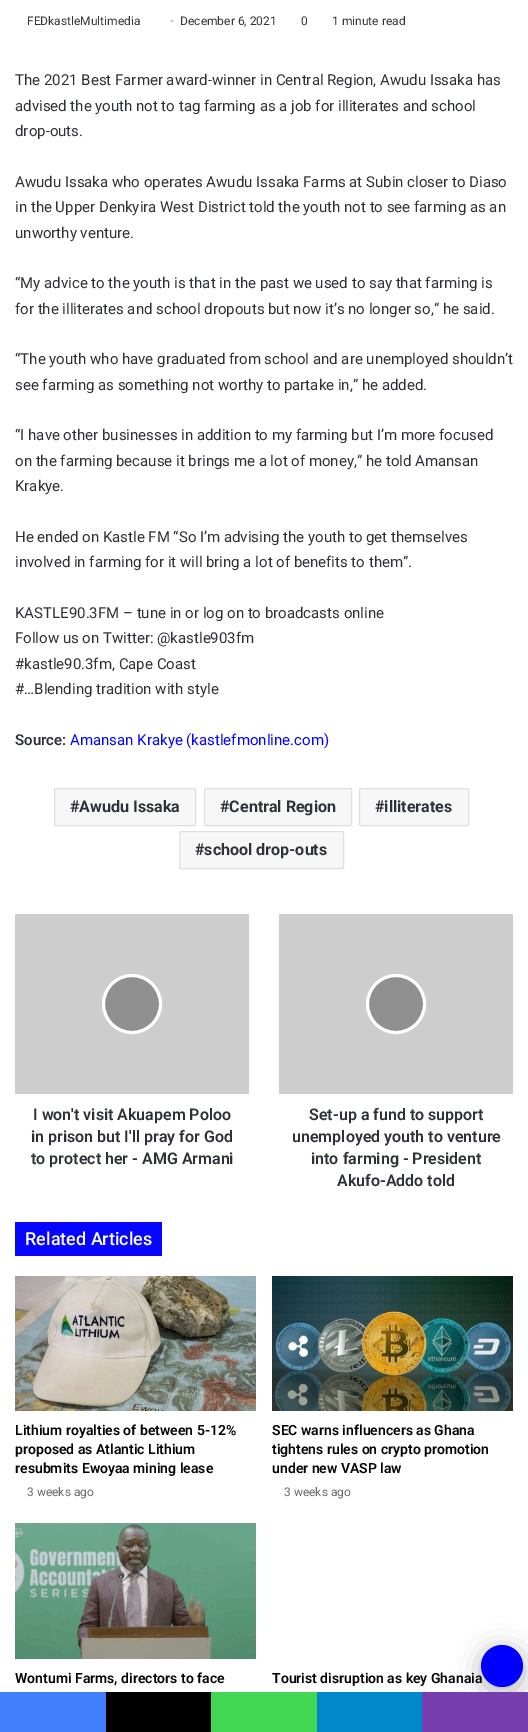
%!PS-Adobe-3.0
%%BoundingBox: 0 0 528 1732
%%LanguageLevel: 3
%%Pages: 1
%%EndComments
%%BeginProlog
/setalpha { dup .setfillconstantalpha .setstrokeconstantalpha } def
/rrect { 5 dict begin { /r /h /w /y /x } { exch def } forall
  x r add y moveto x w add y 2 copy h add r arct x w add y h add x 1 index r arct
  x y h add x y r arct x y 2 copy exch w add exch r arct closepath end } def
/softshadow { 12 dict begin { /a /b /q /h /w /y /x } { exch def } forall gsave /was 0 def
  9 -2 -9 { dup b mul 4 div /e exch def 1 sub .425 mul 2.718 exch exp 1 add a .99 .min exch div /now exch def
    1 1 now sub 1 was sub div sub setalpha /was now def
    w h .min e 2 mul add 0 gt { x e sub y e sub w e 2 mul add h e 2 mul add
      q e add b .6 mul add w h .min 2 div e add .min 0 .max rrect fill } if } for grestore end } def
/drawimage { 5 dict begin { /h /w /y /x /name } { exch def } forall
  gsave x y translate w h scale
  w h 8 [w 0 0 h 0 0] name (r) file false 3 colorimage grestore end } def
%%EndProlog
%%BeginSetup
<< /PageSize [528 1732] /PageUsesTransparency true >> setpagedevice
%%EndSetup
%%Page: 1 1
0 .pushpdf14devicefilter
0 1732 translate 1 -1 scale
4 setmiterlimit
1 setgray
0 0 528 1732 rectfill
0.969 setgray
54.5 788.5 141 37 1.5 rrect gsave fill grestore
0.875 setgray
stroke
0.969 setgray
204.5 788.5 147 37 1.5 rrect gsave fill grestore
0.875 setgray
stroke
0.969 setgray
359.5 788.5 109 37 1.5 rrect gsave fill grestore
0.875 setgray
stroke
0.969 setgray
179.5 831.5 164 37 1.5 rrect gsave fill grestore
0.875 setgray
stroke
0.804 setgray
newpath 17 914 moveto 249 914 lineto 249 1094 lineto 15 1094 lineto 15 916 lineto 15 915 16 914 17 914 curveto closepath fill
0.565 setgray
newpath 132 1004 28.5 0 360 arc closepath gsave fill grestore
1 setgray
3 setlinewidth
stroke
0.804 setgray
newpath 279 914 moveto 511 914 lineto 512 914 513 915 513 916 curveto 513 1094 lineto 279 1094 lineto closepath fill
0.565 setgray
newpath 396 1004 28.5 0 360 arc closepath gsave fill grestore
1 setgray
stroke
0.024 0.02 0.996 setrgbcolor
15 1222 147 34 rectfill
(images/1.raw) 15 1276 241 135 drawimage
(images/2.raw) 272 1276 241 135 drawimage
(images/3.raw) 15 1523 241 137 drawimage
0 setgray
481 1650 42 42 21 12.5 0.3 softshadow
0.251 0.502 1 setrgbcolor
0 1692 106 40 rectfill
0 setgray
106 1692 105 40 rectfill
0.263 0.847 0.329 setrgbcolor
211 1692 106 40 rectfill
0 0.533 0.8 setrgbcolor
317 1692 105 40 rectfill
0.467 0.243 0.678 setrgbcolor
422 1692 106 40 rectfill
/Roboto-Regular [12 0 0 -12 0 0] selectfont
0.208 setgray
27 25 moveto (FEDkastleMultimedia) show
/LiberationSerif-Regular [12 0 0 -12 0 0] selectfont
0.804 setgray
170 25 moveto (•) show
/Roboto-Regular [12 0 0 -12 0 0] selectfont
0.208 setgray
180 25 moveto (December 6, 2021) show
301 25 moveto (0) show
332 25 moveto (1 minute read) show
/Roboto-Regular [15 0 0 -15 0 0] selectfont
0.18 0.192 0.212 setrgbcolor
15 85 moveto (The 2021 Best Farmer award-winner in Central Region, Awudu Issaka has) show
15 111 moveto (advised the youth not to tag farming as a job for illiterates and school) show
15 136 moveto (drop-outs.) show
15 187 moveto (Awudu Issaka who operates Awudu Issaka Farms at Subin closer to Diaso) show
15 212 moveto (in the Upper Denkyira West District told the youth not to see farming as an) show
15 238 moveto (unworthy venture.) show
15 288 moveto (“My advice to the youth is that in the past we used to say that farming is) show
15 314 moveto (for the illiterates and school dropouts but now it’s no longer so,” he said.) show
15 364 moveto (“The youth who have graduated from school and are unemployed shouldn’t) show
15 390 moveto (see farming as something not worthy to partake in,” he added.) show
15 440 moveto (“I have other businesses in addition to my farming but I’m more focused) show
15 466 moveto (on the farming because it brings me a lot of money,” he told Amansan) show
15 491 moveto (Krakye.) show
15 542 moveto (He ended on Kastle FM “So I’m advising the youth to get themselves) show
15 567 moveto (involved in farming for it will bring a lot of benefits to them”.) show
15 618 moveto (KASTLE90.3FM – tune in or log on to broadcasts online) show
15 643 moveto (Follow us on Twitter: @kastle903fm) show
15 669 moveto (#kastle90.3fm, Cape Coast) show
15 694 moveto (#…Blending tradition with style) show
/Roboto-SemiBold [15 0 0 -15 0 0] selectfont
15 745 moveto (Source:) show
/Roboto-Regular [15 0 0 -15 0 0] selectfont
0.012 0.012 1 setrgbcolor
70 745 moveto (Amansan Krakye \(kastlefmonline.com\)) show
/Roboto-Bold [16 0 0 -16 0 0] selectfont
0.18 0.192 0.212 setrgbcolor
70 812 moveto (#Awudu Issaka) show
220 812 moveto (#Central Region) show
375 812 moveto (#illiterates) show
195 855 moveto (#school drop-outs) show
/Roboto-SemiBold [16 0 0 -16 0 0] selectfont
33 1120 moveto (I won't visit Akuapem Poloo) show
31 1142 moveto (in prison but I'll pray for God) show
31 1164 moveto (to protect her - AMG Armani) show
309 1120 moveto (Set-up a fund to support) show
292 1142 moveto (unemployed youth to venture) show
311 1164 moveto (into farming - President) show
337 1186 moveto (Akufo-Addo told) show
/Roboto-Medium [18 0 0 -18 0 0] selectfont
1 setgray
25 1245 moveto (Related Articles) show
/Roboto-SemiBold [14 0 0 -14 0 0] selectfont
0.012 setgray
15 1435 moveto (Lithium royalties of between 5-12%) show
15 1454 moveto (proposed as Atlantic Lithium) show
15 1473 moveto (resubmits Ewoyaa mining lease) show
/Roboto-Regular [12 0 0 -12 0 0] selectfont
0.408 setgray
27 1496 moveto (3 weeks ago) show
/Roboto-SemiBold [14 0 0 -14 0 0] selectfont
0.012 setgray
272 1435 moveto (SEC warns influencers as Ghana) show
272 1454 moveto (tightens rules on crypto promotion) show
272 1473 moveto (under new VASP law) show
/Roboto-Regular [12 0 0 -12 0 0] selectfont
0.408 setgray
284 1496 moveto (3 weeks ago) show
/Roboto-SemiBold [14 0 0 -14 0 0] selectfont
0.012 setgray
15 1683 moveto (Wontumi Farms, directors to face) show
272 1683 moveto (Tourist disruption as key Ghanaia) show
0.004 0 0.996 setrgbcolor
newpath 502 1666 21 0 360 arc closepath fill
.poppdf14devicefilter showpage
%%EOF
